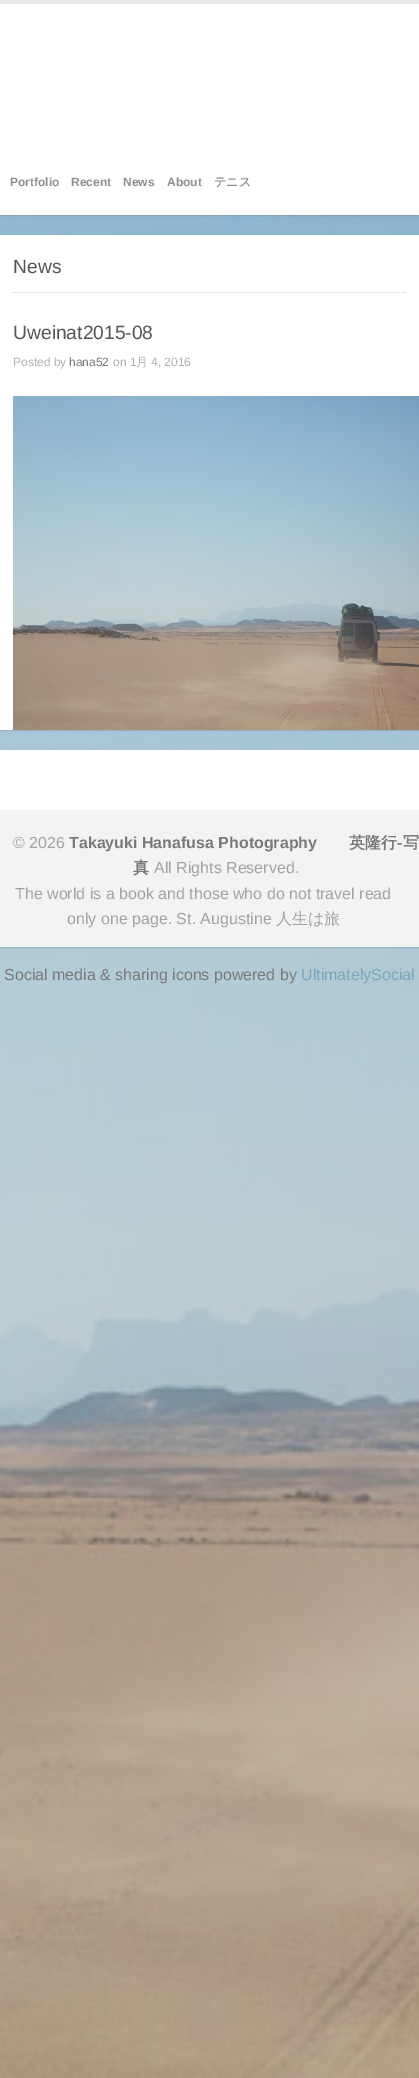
%!PS-Adobe-3.0
%%BoundingBox: 0 0 419 2078
%%LanguageLevel: 3
%%Pages: 1
%%EndComments
%%BeginProlog
/setalpha { dup .setfillconstantalpha .setstrokeconstantalpha } def
/rrect { 5 dict begin { /r /h /w /y /x } { exch def } forall
  x r add y moveto x w add y 2 copy h add r arct x w add y h add x 1 index r arct
  x y h add x y r arct x y 2 copy exch w add exch r arct closepath end } def
/softshadow { 12 dict begin { /a /b /q /h /w /y /x } { exch def } forall gsave /was 0 def
  9 -2 -9 { dup b mul 4 div /e exch def 1 sub .425 mul 2.718 exch exp 1 add a .99 .min exch div /now exch def
    1 1 now sub 1 was sub div sub setalpha /was now def
    w h .min e 2 mul add 0 gt { x e sub y e sub w e 2 mul add h e 2 mul add
      q e add b .6 mul add w h .min 2 div e add .min 0 .max rrect fill } if } for grestore end } def
/drawimage { 5 dict begin { /h /w /y /x /name } { exch def } forall
  gsave x y translate w h scale
  w h 8 [w 0 0 h 0 0] name (r) file false 3 colorimage grestore end } def
%%EndProlog
%%BeginSetup
<< /PageSize [419 2078] /PageUsesTransparency true >> setpagedevice
%%EndSetup
%%Page: 1 1
0 .pushpdf14devicefilter
0 2078 translate 1 -1 scale
4 setmiterlimit
1 setgray
0 0 419 2078 rectfill
(images/3.raw) 0 215 419 1863 drawimage
0 setgray
0 1 419 215 0 0.5 0.1 softshadow
1 setgray
0 4 419 211 rectfill
0.918 setgray
0 0 419 4 rectfill
0 setgray
0 236 419 495 0 0.5 0.1 softshadow
1 setgray
0 235 419 495 rectfill
(images/1.raw) 13 292 393 1 drawimage
(images/2.raw) 13 396 406 334 drawimage
0 setgray
0 751 419 197 0 0.5 0.1 softshadow
1 setgray
0 750 419 60 rectfill
0.953 setgray
0 810 419 137 rectfill
/LiberationSans-Bold [12 0 0 -12 0 0] selectfont
0.561 setgray
10 186 moveto (Portfolio) show
71 186 moveto (Recent) show
123 186 moveto (News) show
167 186 moveto (About) show
/WenQuanYiZenHei-Bold [12 0 0 -12 0 0] selectfont
214 186 moveto (テニス) show
/LiberationSans-Regular [19.25 0 0 -19.25 0 0] selectfont
0.333 setgray
13 273 moveto (News) show
13 339 moveto (Uweinat2015-08) show
/LiberationSans-Regular [12 0 0 -12 0 0] selectfont
0.69 0.69 0.678 setrgbcolor
13 366 moveto (Posted by) show
0.475 setgray
69 366 moveto (hana52) show
0.69 0.69 0.678 setrgbcolor
113 366 moveto (on 1) show
/WenQuanYiZenHei-Medium [12 0 0 -12 0 0] selectfont
136 366 moveto (月) show
/LiberationSans-Regular [12 0 0 -12 0 0] selectfont
151 366 moveto (4, 2016) show
/LiberationSans-Regular [16 0 0 -16 0 0] selectfont
0.635 setgray
13 848 moveto (© 2026) show
/LiberationSans-Bold [16 0 0 -16 0 0] selectfont
0.475 setgray
69 848 moveto (Takayuki Hanafusa Photography) show
/WenQuanYiZenHei-Bold [16 0 0 -16 0 0] selectfont
349 848 moveto (英隆行) show
/LiberationSans-Bold [16 0 0 -16 0 0] selectfont
397 848 moveto (-) show
/WenQuanYiZenHei-Bold [16 0 0 -16 0 0] selectfont
403 848 moveto (写) show
133 873 moveto (真) show
/LiberationSans-Regular [16 0 0 -16 0 0] selectfont
0.635 setgray
154 873 moveto (All Rights Reserved.) show
15 899 moveto (The world is a book and those who do not travel read) show
67 924 moveto (only one page. St. Augustine) show
/WenQuanYiZenHei-Medium [16 0 0 -16 0 0] selectfont
276 924 moveto (人生は旅) show
/LiberationSans-Regular [16 0 0 -16 0 0] selectfont
0.475 setgray
4 980 moveto (Social media & sharing icons powered by) show
0.467 0.655 0.725 setrgbcolor
301 980 moveto (UltimatelySocial) show
.poppdf14devicefilter showpage
%%EOF
